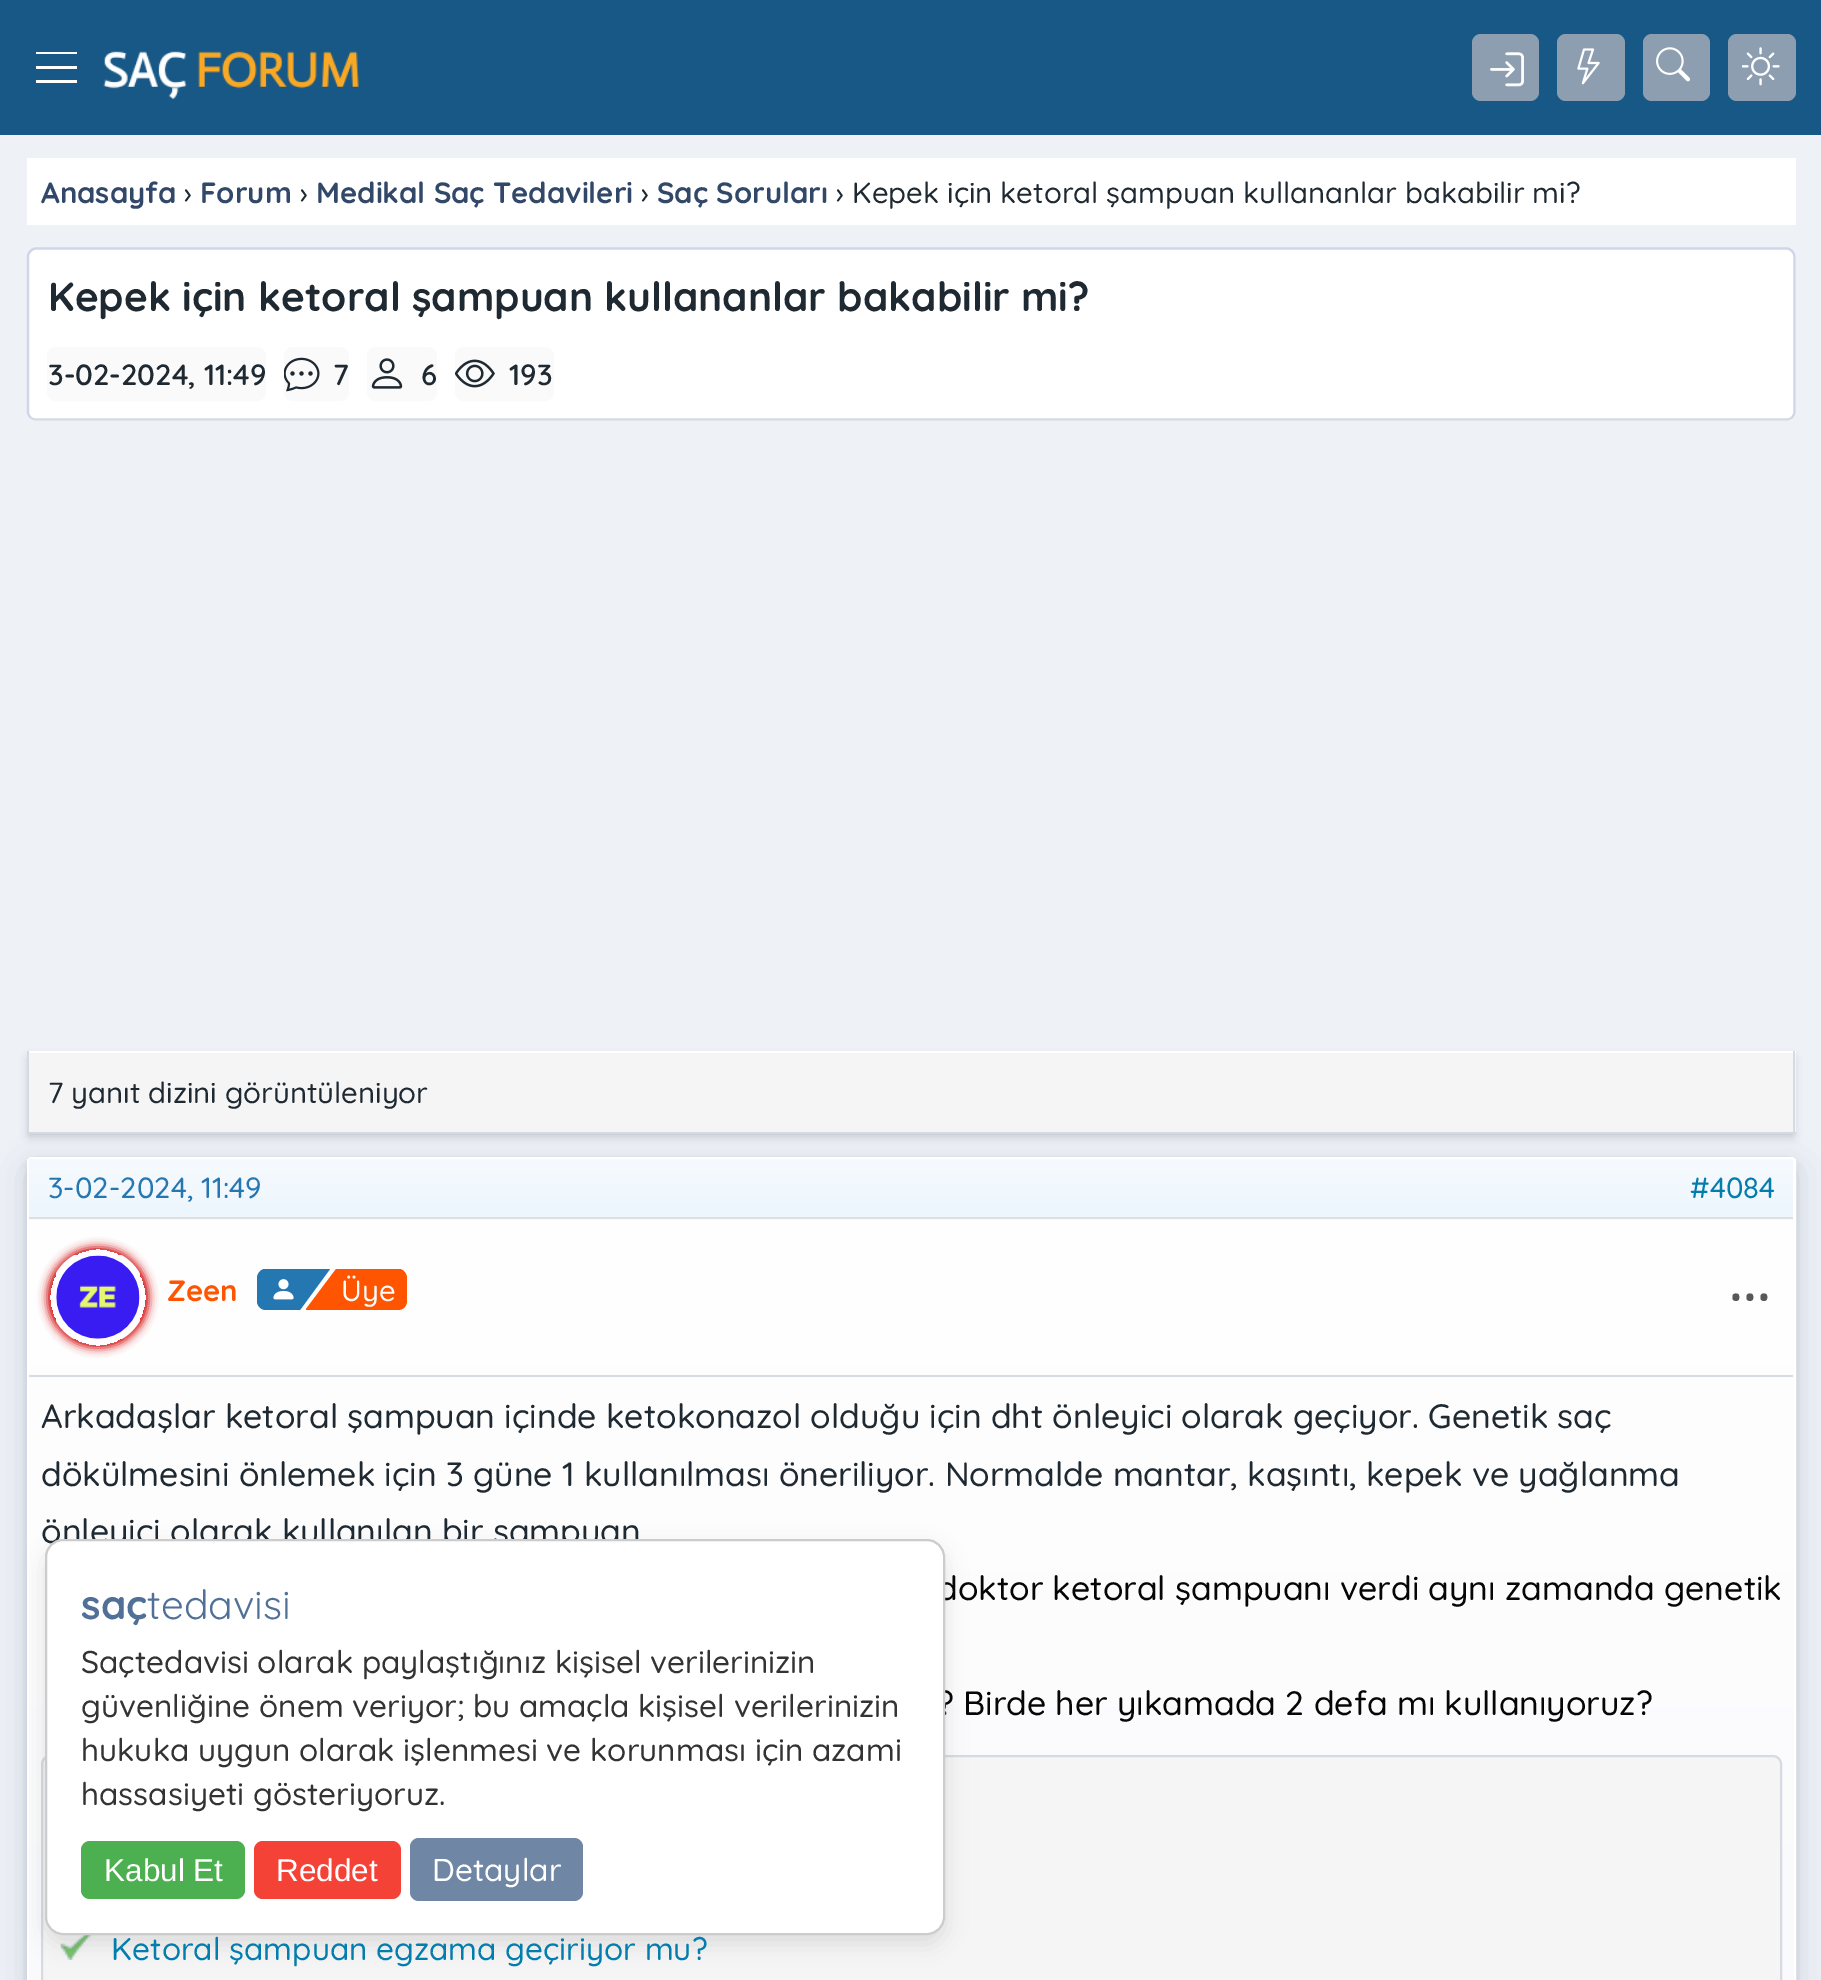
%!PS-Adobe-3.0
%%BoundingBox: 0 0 1821 1980
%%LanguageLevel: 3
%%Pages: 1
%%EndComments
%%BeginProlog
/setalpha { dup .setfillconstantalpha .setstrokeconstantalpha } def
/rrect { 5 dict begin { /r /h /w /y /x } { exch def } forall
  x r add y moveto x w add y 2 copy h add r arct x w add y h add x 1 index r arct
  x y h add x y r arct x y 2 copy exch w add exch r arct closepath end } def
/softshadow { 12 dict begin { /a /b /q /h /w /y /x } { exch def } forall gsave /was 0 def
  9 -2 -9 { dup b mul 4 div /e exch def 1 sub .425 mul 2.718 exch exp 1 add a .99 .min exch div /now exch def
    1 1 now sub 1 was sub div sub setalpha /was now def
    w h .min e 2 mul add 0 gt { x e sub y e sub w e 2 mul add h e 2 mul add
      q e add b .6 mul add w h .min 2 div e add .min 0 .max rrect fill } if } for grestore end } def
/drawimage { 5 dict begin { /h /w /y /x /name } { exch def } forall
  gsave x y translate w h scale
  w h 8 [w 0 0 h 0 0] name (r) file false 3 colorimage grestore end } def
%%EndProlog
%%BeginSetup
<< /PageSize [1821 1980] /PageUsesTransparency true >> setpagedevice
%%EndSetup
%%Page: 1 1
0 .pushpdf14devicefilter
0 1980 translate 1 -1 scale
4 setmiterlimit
0.933 0.945 0.965 setrgbcolor
0 0 1821 1980 rectfill
0.094 0.345 0.525 setrgbcolor
0 0 1821 135 rectfill
1 setgray
36 52 41 2 rectfill
36 66 41 3 rectfill
36 80 41 3 rectfill
(images/1.raw) 103 51 256 48 drawimage
0.557 0.62 0.694 setrgbcolor
1472 34 67 67 9 rrect fill
(images/2.raw) 1490 52 34 35 drawimage
1557 34 68 67 9 rrect fill
(images/3.raw) 1577 48 23 37 drawimage
1643 34 67 67 9 rrect fill
(images/4.raw) 1656 47 35 35 drawimage
1728 34 68 67 9 rrect fill
(images/5.raw) 1742 47 38 39 drawimage
1 setgray
27 158 1769 67 rectfill
27 248 1769 173 9 rrect fill
0.839 0.855 0.89 setrgbcolor
2.2 setlinewidth
newpath 1792 417.5 moveto 1790.5 419 1788.5 419.5 1786.5 419.5 curveto 36 419.5 lineto 34 419.5 32 419 30.5 417.5 curveto stroke
0.804 0.839 0.922 setrgbcolor
newpath 30.5 417.5 moveto 29 416 28 414 28 412 curveto 28 256.5 lineto 28 254.5 29 252.5 30.5 251 curveto 32 249.5 34 248.5 36 248.5 curveto 1786.5 248.5 lineto 1788.5 248.5 1790.5 249.5 1792 251 curveto 1793.5 252.5 1794.5 254.5 1794.5 256.5 curveto 1794.5 412 lineto 1794.5 414 1793.5 416 1792 417.5 curveto stroke
0.98 setgray
47 347 219 54 9 rrect fill
284 347 65 54 9 rrect fill
(images/6.raw) 284 357 36 35 drawimage
367 347 70 54 9 rrect fill
(images/7.raw) 371 358 32 31 drawimage
455 347 99 54 9 rrect fill
(images/8.raw) 455 359 40 29 drawimage
0.741 0.757 0.78 setrgbcolor
29 1058 1764 78 0 4.5 1 softshadow
0.961 setgray
29 1053 1767 79 rectfill
1 setgray
27 1051 1769 2 rectfill
0.839 0.855 0.89 setrgbcolor
1793 1051 2 83 rectfill
27 1132 1769 2 rectfill
27 1051 2 83 rectfill
0.365 0.392 0.58 setrgbcolor
27 1161 1769 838 5 4.5 0.2 softshadow
0.145 0.173 0.38 setrgbcolor
27 1168 1769 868 5 17 0.15 softshadow
gsave
27 1157 1769 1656 5 rrect clip newpath
gsave newpath 27 1159 moveto 1796 1159 lineto 1796 1980 lineto 27 1980 lineto closepath clip newpath
<< /ShadingType 2 /ColorSpace /DeviceRGB /Coords [911 1159 911 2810] /Extend [true true] /Function << /FunctionType 2 /Domain [0 1] /C0 [1 1 1] /C1 [0.961 0.961 0.98] /N 1 >> >> shfill grestore
grestore
1 setgray
2 setlinewidth
28 1158 1767 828 4 rrect stroke
gsave newpath 29 1159 moveto 1793 1159 lineto 1793 1217 lineto 29 1217 lineto closepath clip newpath
<< /ShadingType 2 /ColorSpace /DeviceRGB /Coords [911 1217 911 1159] /Extend [true true] /Function << /FunctionType 2 /Domain [0 1] /C0 [0.929 0.965 0.992] /C1 [0.965 0.98 0.996] /N 1 >> >> shfill grestore
gsave newpath 29 1219 moveto 1793 1219 lineto 1793 1220 lineto 29 1220 lineto closepath clip newpath
<< /ShadingType 2 /ColorSpace /DeviceRGB /Coords [911 1276 911 1217] /Extend [true true] /Function << /FunctionType 2 /Domain [0 1] /C0 [0.929 0.965 0.992] /C1 [0.965 0.98 0.996] /N 1 >> >> shfill grestore
0.875 setgray
29 1217 1764 2 rectfill
0.839 0.855 0.89 setrgbcolor
29 1375 1764 2 rectfill
gsave
newpath 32 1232 moveto 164 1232 lineto 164 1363 lineto 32 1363 lineto closepath 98 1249 moveto 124.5 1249 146 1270.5 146 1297 curveto 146 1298 lineto 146 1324.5 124.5 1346 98 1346 curveto 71.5 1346 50 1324.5 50 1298 curveto 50 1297 lineto 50 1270.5 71.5 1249 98 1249 curveto closepath eoclip newpath
0.82 0 0 setrgbcolor
47 1247 102 101 50.5 4.5 1 softshadow
grestore
(images/9.raw) 56 1255 84 84 drawimage
0.145 0.467 0.694 setrgbcolor
newpath 300 1310 moveto 330 1269 lineto 264 1269 lineto 260 1270 257 1274 257 1278 curveto 257 1301 lineto 257 1306 261 1310 266 1310 curveto closepath fill
(images/10.raw) 273 1279 21 21 drawimage
1 0.329 0 setrgbcolor
newpath 336 1269 moveto 306 1309 lineto 306 1310 lineto 398 1310 lineto 403 1310 406 1307 407 1302 curveto 407 1277 lineto 406 1273 404 1270 400 1269 curveto closepath fill
0.961 setgray
42 1756 1739 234 8 rrect gsave fill grestore
0.839 0.855 0.89 setrgbcolor
stroke
(images/11.raw) 60 1935 33 25 drawimage
0 setgray
45 1548 900 396 18 11 0.1 softshadow
/Quicksand-Bold [29.25 0 0 -29.25 0 0] selectfont
0.196 0.282 0.412 setrgbcolor
41 203 moveto (Anasayfa) show
/Quicksand-Medium [29.25 0 0 -29.25 0 0] selectfont
0.122 0.161 0.196 setrgbcolor
184 203 moveto (›) show
/Quicksand-Bold [29.25 0 0 -29.25 0 0] selectfont
0.196 0.282 0.412 setrgbcolor
200 203 moveto (Forum) show
/Quicksand-Medium [29.25 0 0 -29.25 0 0] selectfont
0.122 0.161 0.196 setrgbcolor
300 203 moveto (›) show
/Quicksand-Bold [29.25 0 0 -29.25 0 0] selectfont
0.196 0.282 0.412 setrgbcolor
316 203 moveto (Medikal Saç Tedavileri) show
/Quicksand-Medium [29.25 0 0 -29.25 0 0] selectfont
0.122 0.161 0.196 setrgbcolor
641 203 moveto (›) show
/Quicksand-Bold [29.25 0 0 -29.25 0 0] selectfont
0.196 0.282 0.412 setrgbcolor
657 203 moveto (Saç Soruları) show
/Quicksand-Medium [29.25 0 0 -29.25 0 0] selectfont
0.122 0.161 0.196 setrgbcolor
836 203 moveto (› Kepek için ketoral şampuan kullananlar bakabilir mi?) show
/Quicksand-Bold [40.5 0 0 -40.5 0 0] selectfont
48 311 moveto (Kepek için ketoral şampuan kullananlar bakabilir mi?) show
/Quicksand-SemiBold [29.25 0 0 -29.25 0 0] selectfont
48 385 moveto (3-02-2024, 11:49) show
333 385 moveto (7) show
421 385 moveto (6) show
509 385 moveto (193) show
/Quicksand-Medium [29.25 0 0 -29.25 0 0] selectfont
48 1103 moveto (7 yanıt dizini görüntüleniyor) show
0.145 0.467 0.694 setrgbcolor
48 1198 moveto (3-02-2024, 11:49) show
0.008 0.49 0.678 setrgbcolor
1690 1198 moveto (#4084) show
/Quicksand-Bold [29.25 0 0 -29.25 0 0] selectfont
1 0.329 0 setrgbcolor
167 1301 moveto (Zeen) show
/Quicksand-Medium [29.25 0 0 -29.25 0 0] selectfont
1 setgray
341 1301 moveto (Üye) show
/Quicksand-SemiBold [61 0 0 -61 0 0] selectfont
0.345 setgray
1729 1301 moveto (...) show
/Quicksand-Medium [33.75 0 0 -33.75 0 0] selectfont
0.122 0.161 0.196 setrgbcolor
41 1428 moveto (Arkadaşlar ketoral şampuan içinde ketokonazol olduğu için dht önleyici olarak geçiyor. Genetik saç) show
41 1486 moveto (dökülmesini önlemek için 3 güne 1 kullanılması öneriliyor. Normalde mantar, kaşıntı, kepek ve yağlanma) show
41 1543 moveto (önleyici olarak kullanılan bir şampuan) show
0.024 setgray
937 1600 moveto (doktor ketoral şampuanı verdi aynı zamanda genetik) show
937 1715 moveto (? Birde her yıkamada 2 defa mı kullanıyoruz?) show
/Quicksand-Medium [31.5 0 0 -31.5 0 0] selectfont
0.008 0.49 0.678 setrgbcolor
111 1960 moveto (Ketoral şampuan egzama geçiriyor mu?) show
1 setgray
46 1540 898 394 17 rrect gsave fill grestore
0.8 setgray
stroke
/Quicksand-Bold [40.5 0 0 -40.5 0 0] selectfont
0.318 0.439 0.592 setrgbcolor
81 1619 moveto (saç) show
/Quicksand-Regular [40.5 0 0 -40.5 0 0] selectfont
147 1619 moveto (tedavisi) show
/Quicksand-Medium [31.5 0 0 -31.5 0 0] selectfont
0.2 setgray
81 1673 moveto (Saçtedavisi olarak paylaştığınız kişisel verilerinizin) show
81 1717 moveto (güvenliğine önem veriyor; bu amaçla kişisel verilerinizin) show
81 1761 moveto (hukuka uygun olarak işlenmesi ve korunması için azami) show
81 1805 moveto (hassasiyeti gösteriyoruz.) show
0.298 0.686 0.314 setrgbcolor
81 1841 164 58 9 rrect fill
/LiberationSans-Regular [31.5 0 0 -31.5 0 0] selectfont
1 setgray
104 1881 moveto (Kabul Et) show
0.957 0.263 0.212 setrgbcolor
254 1841 147 58 9 rrect fill
1 setgray
276 1881 moveto (Reddet) show
0.435 0.529 0.647 setrgbcolor
410 1838 173 63 9 rrect fill
/Quicksand-Medium [31.5 0 0 -31.5 0 0] selectfont
1 setgray
432 1881 moveto (Detaylar) show
.poppdf14devicefilter showpage
%%EOF
